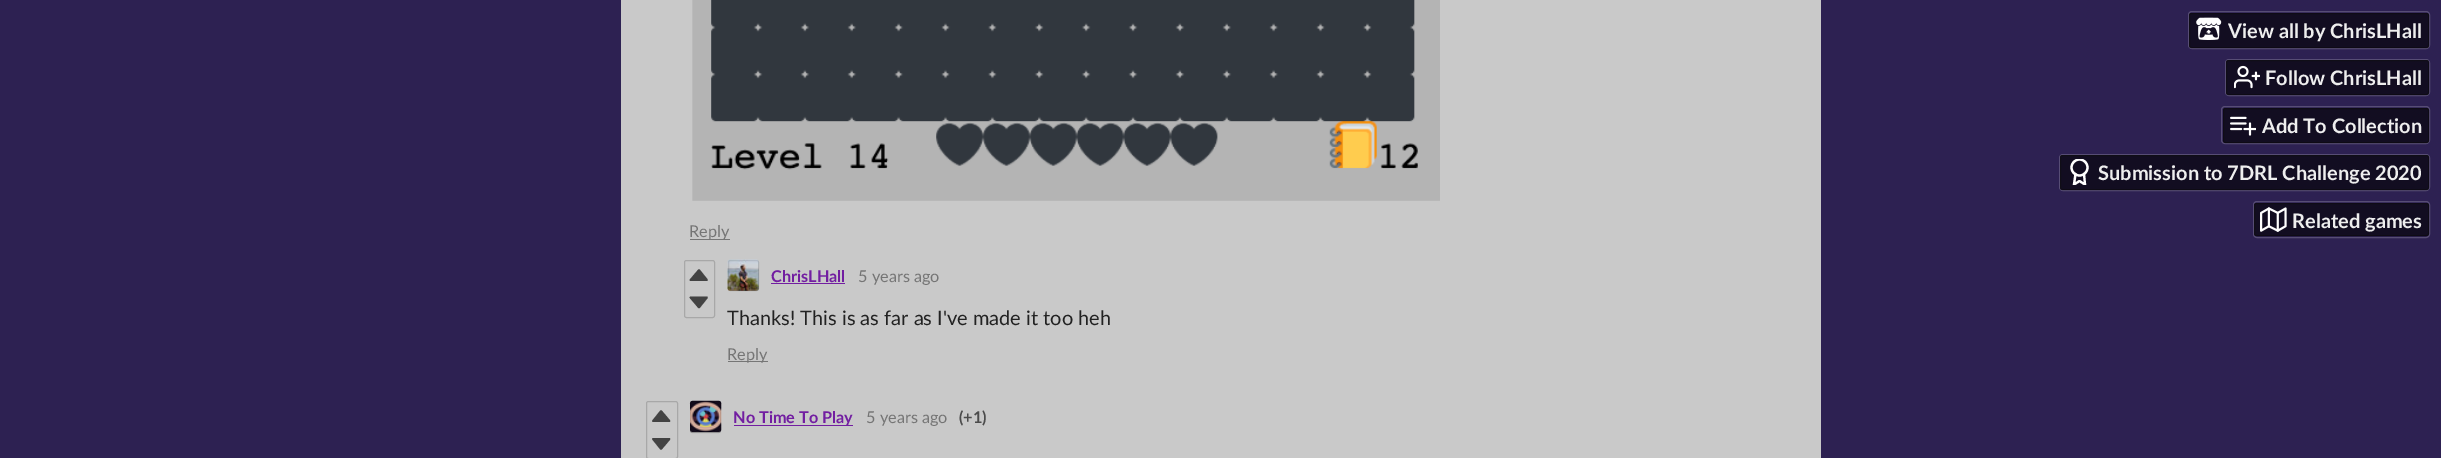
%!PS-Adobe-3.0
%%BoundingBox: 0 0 2441 458
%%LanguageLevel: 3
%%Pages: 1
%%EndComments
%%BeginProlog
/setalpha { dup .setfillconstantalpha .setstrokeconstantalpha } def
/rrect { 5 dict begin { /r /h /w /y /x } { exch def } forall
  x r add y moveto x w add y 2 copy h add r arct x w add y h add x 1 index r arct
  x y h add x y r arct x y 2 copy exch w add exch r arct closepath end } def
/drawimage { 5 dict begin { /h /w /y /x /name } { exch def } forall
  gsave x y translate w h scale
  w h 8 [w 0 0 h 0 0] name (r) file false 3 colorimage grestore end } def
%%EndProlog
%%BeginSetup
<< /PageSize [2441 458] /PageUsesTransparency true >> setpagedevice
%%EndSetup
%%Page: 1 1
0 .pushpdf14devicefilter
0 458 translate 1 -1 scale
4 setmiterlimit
0.176 0.129 0.322 setrgbcolor
0 0 2441 458 rectfill
0.341 0.302 0.459 setrgbcolor
2188.5 11.5 241 37 3.5 rrect stroke
0.6 setalpha
0 setgray
2189 13 240 35 2.5 rrect fill
0.5 setalpha
0.039 setgray
2189.5 13.5 239 34 2 rrect stroke
1 setalpha
(images/1.raw) 2196 17 26 23 drawimage
0.341 0.302 0.459 setrgbcolor
2225.5 59.5 204 36 3.5 rrect stroke
0.6 setalpha
0 setgray
2226 60 203 35 2.5 rrect fill
0.5 setalpha
0.039 setgray
2226.5 60.5 202 34 2 rrect stroke
1 setalpha
(images/2.raw) 2234 65 26 24 drawimage
0.341 0.302 0.459 setrgbcolor
2221.5 106.5 208 37 3.5 rrect stroke
0.6 setalpha
0 setgray
2223 108 206 35 2.5 rrect fill
0.5 setalpha
0.039 setgray
2223.5 108.5 205 34 2 rrect stroke
1 setalpha
(images/3.raw) 2230 116 26 20 drawimage
0.341 0.302 0.459 setrgbcolor
2059.5 154.5 370 36 3.5 rrect stroke
0.6 setalpha
0 setgray
2060 155 369 35 2.5 rrect fill
0.5 setalpha
0.039 setgray
2060.5 155.5 368 34 2 rrect stroke
gsave
2066 159 28 26 rectclip
1 setalpha
1 setgray
2.2 setlinewidth
newpath 2079.5 167.5 8 0 360 arc closepath stroke
1 setlinecap
1 setlinejoin
newpath 2075.5 174 moveto 2074 184.5 lineto 2079.5 181 lineto 2085 184.5 lineto 2084 174 lineto stroke
grestore
1 setalpha
0.341 0.302 0.459 setrgbcolor
2253.5 201.5 176 36 3.5 rrect stroke
0.6 setalpha
0 setgray
2254 203 175 33 2.5 rrect fill
0.5 setalpha
0.039 setgray
2254.5 203.5 174 32 2 rrect stroke
1 setalpha
(images/4.raw) 2260 207 27 25 drawimage
0.788 setgray
621 0 1200 458 rectfill
(images/5.raw) 692 0 748 201 drawimage
0.463 setgray
690 239 40 1 rectfill
0.659 setgray
684.5 260.5 30 57 2 rrect stroke
0.263 setgray
newpath 690.5 280 moveto 699 270 lineto 707 280 lineto closepath gsave fill grestore
1.7 setlinewidth
1 setlinejoin
stroke
newpath 690.5 297.5 moveto 699 307.5 lineto 707 297.5 lineto closepath gsave fill grestore
stroke
0.631 setgray
728 260 31 31 2.5 rrect fill
(images/6.raw) 727 259 32 32 drawimage
0.1 setalpha
0 setgray
1 setlinewidth
0 setlinejoin
728.5 260.5 30 30 2 rrect stroke
1 setalpha
0.447 0.118 0.631 setrgbcolor
771 283 74 1 rectfill
0.463 setgray
728 361 40 1 rectfill
0.659 setgray
646.5 401.5 31 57 2 rrect stroke
0.263 setgray
newpath 653 421 moveto 661 411 lineto 669.5 421 lineto closepath gsave fill grestore
1.7 setlinewidth
1 setlinejoin
stroke
newpath 653 439 moveto 661 449 lineto 669.5 439 lineto closepath gsave fill grestore
stroke
0.631 setgray
690 401 31 32 2.5 rrect fill
(images/7.raw) 689 400 33 32 drawimage
0.1 setalpha
0 setgray
1 setlinewidth
0 setlinejoin
690.5 401.5 30 31 2 rrect stroke
1 setalpha
0.447 0.118 0.631 setrgbcolor
734 425 119 1 rectfill
/Lato-Bold [20 0 0 -20 0 0] selectfont
0.933 setgray
2228 38 moveto (View all by ChrisLHall) show
2265 85 moveto (Follow ChrisLHall) show
2262 133 moveto (Add To Collection) show
2098 180 moveto (Submission to 7DRL Challenge 2020) show
2292 228 moveto (Related games) show
/Lato-Regular [16.25 0 0 -16.25 0 0] selectfont
0.459 setgray
689 237 moveto (Reply) show
/Lato-Bold [16.25 0 0 -16.25 0 0] selectfont
0.447 0.118 0.631 setrgbcolor
771 282 moveto (ChrisLHall) show
/Lato-Regular [16.25 0 0 -16.25 0 0] selectfont
0.459 setgray
858 282 moveto (5 years ago) show
/Lato-Regular [20 0 0 -20 0 0] selectfont
0.133 setgray
727 325 moveto (Thanks! This is as far as I've made it too heh) show
/Lato-Regular [16.25 0 0 -16.25 0 0] selectfont
0.459 setgray
727 360 moveto (Reply) show
/Lato-Bold [16.25 0 0 -16.25 0 0] selectfont
0.447 0.118 0.631 setrgbcolor
733 423 moveto (No Time To Play) show
/Lato-Regular [16.25 0 0 -16.25 0 0] selectfont
0.459 setgray
866 423 moveto (5 years ago) show
/Lato-Bold [16.25 0 0 -16.25 0 0] selectfont
0.298 setgray
959 423 moveto (\(+1\)) show
.poppdf14devicefilter showpage
%%EOF
